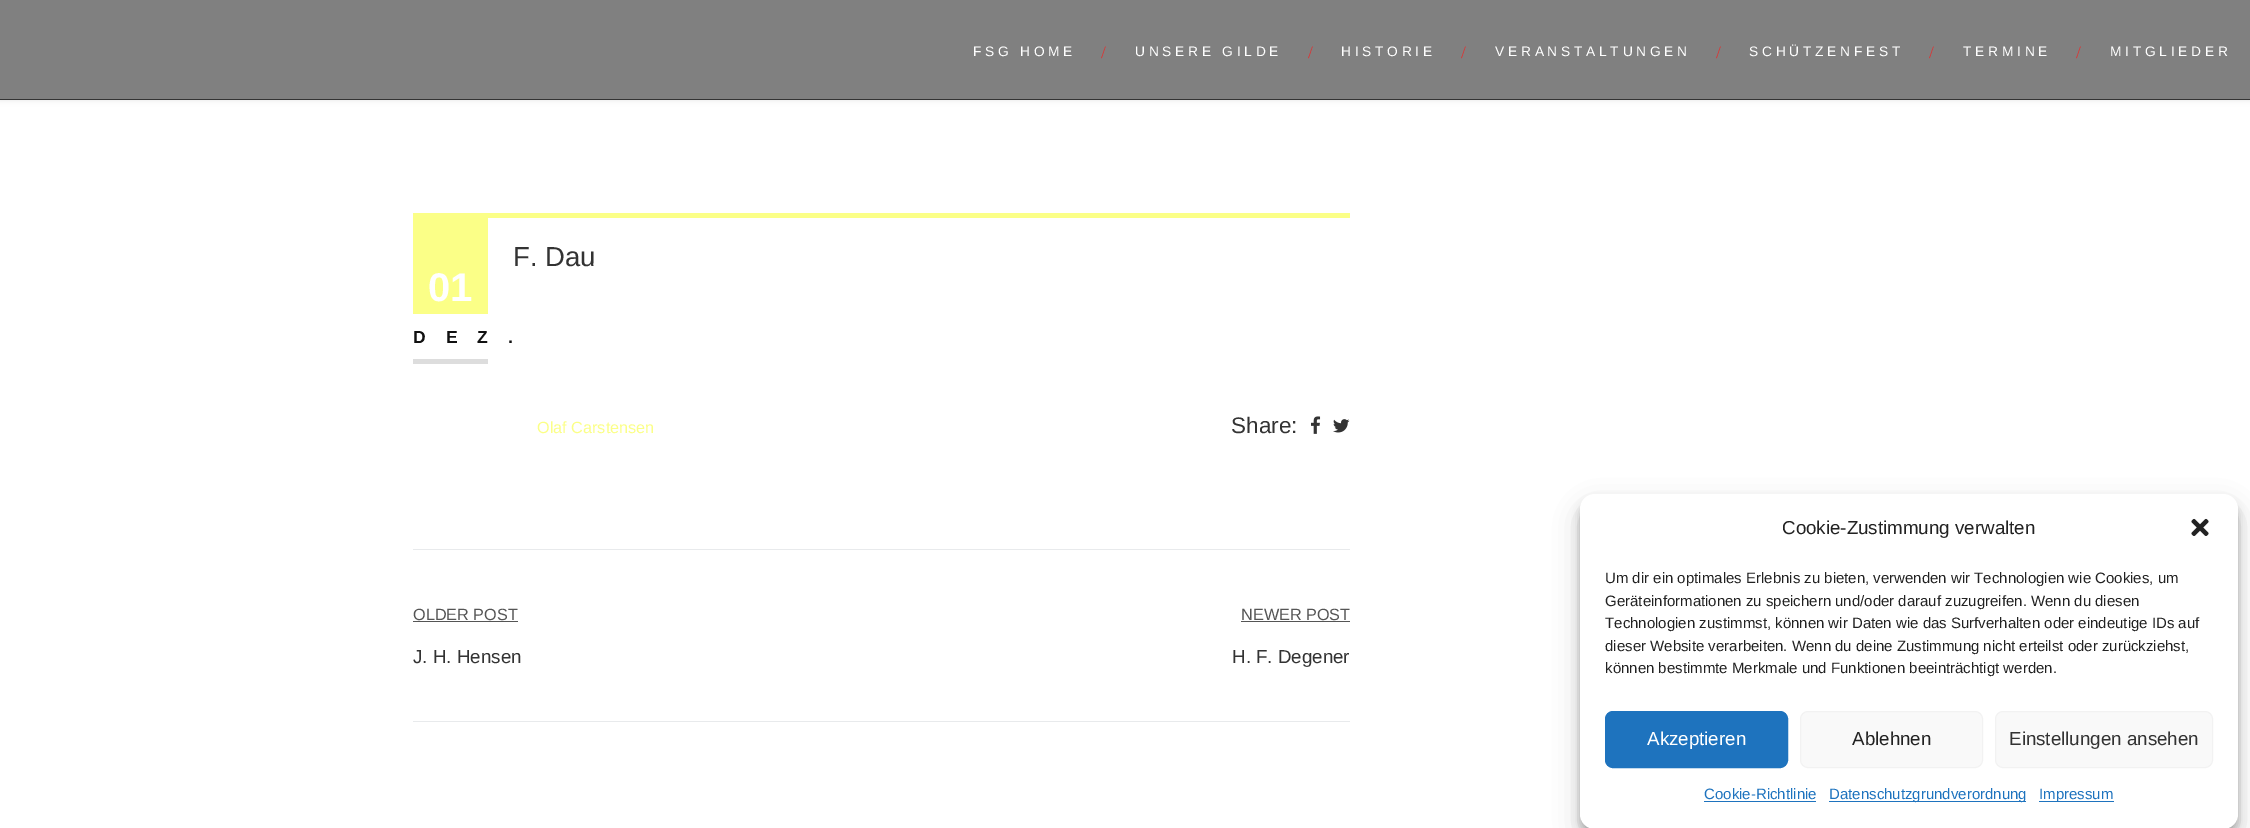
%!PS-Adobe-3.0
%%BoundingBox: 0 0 2250 828
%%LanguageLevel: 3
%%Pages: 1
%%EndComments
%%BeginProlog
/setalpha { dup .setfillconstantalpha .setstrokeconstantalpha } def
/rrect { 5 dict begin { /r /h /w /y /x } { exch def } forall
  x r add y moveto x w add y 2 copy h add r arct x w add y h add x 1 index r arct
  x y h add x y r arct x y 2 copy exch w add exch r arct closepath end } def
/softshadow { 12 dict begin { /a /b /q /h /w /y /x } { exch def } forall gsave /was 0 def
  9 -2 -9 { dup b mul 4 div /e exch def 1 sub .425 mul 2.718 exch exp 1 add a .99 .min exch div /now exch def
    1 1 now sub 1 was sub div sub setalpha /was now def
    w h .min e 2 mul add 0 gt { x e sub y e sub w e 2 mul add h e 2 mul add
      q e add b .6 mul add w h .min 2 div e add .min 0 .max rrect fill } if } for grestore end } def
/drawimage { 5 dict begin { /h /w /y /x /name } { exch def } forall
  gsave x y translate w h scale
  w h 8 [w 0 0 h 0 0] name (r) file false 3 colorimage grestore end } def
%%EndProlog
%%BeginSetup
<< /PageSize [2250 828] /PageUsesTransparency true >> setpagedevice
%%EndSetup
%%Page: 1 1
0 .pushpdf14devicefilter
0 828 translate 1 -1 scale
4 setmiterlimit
1 setgray
0 0 2250 828 rectfill
0 setgray
0 0 2250 100 0 3 0.1 softshadow
0.502 setgray
0 0 2250 99 rectfill
0.2 setgray
0 99 2250 1 rectfill
0.984 1 0.529 setrgbcolor
413 213 937 5 rectfill
413 218 75 96 rectfill
0.867 setgray
413 359 75 5 rectfill
(images/1.raw) 1311 416 10 18 drawimage
(images/2.raw) 1333 419 17 14 drawimage
0.91 0.918 0.925 setrgbcolor
413 549 937 1 rectfill
413 721 937 1 rectfill
0.333 setgray
413 621 105 1 rectfill
1241 621 109 1 rectfill
0 setgray
1580 501 658 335 15 4 0.23 softshadow
1580 506 658 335 15 12.5 0.19 softshadow
1 setgray
1580 494 658 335 15 rrect fill
(images/3.raw) 2191 518 18 18 drawimage
0.118 0.451 0.745 setrgbcolor
1605.5 711.5 182 56 7.5 rrect gsave fill grestore
stroke
0.976 setgray
1800.5 711.5 182 56 7.5 rrect gsave fill grestore
0.949 setgray
stroke
0.976 setgray
1995.5 711.5 217 56 7.5 rrect gsave fill grestore
0.949 setgray
stroke
0.118 0.451 0.745 setrgbcolor
1704 801 112 1 rectfill
1829 801 197 1 rectfill
2039 801 75 1 rectfill
/LiberationSans-Regular [13.75 0 0 -13.75 0 0] selectfont
1 setgray
973 56 moveto 3.75 0 (FSG HOME) ashow
/LiberationSerif-Regular [17.5 0 0 -17.5 0 0] selectfont
0.867 0.2 0.2 setrgbcolor
1101 58 moveto 3.75 0 (/) ashow
/LiberationSans-Regular [13.75 0 0 -13.75 0 0] selectfont
1 setgray
1135 56 moveto 3.75 0 (UNSERE GILDE) ashow
/LiberationSerif-Regular [17.5 0 0 -17.5 0 0] selectfont
0.867 0.2 0.2 setrgbcolor
1308 58 moveto 3.75 0 (/) ashow
/LiberationSans-Regular [13.75 0 0 -13.75 0 0] selectfont
1 setgray
1341 56 moveto 3.75 0 (HISTORIE) ashow
/LiberationSerif-Regular [17.5 0 0 -17.5 0 0] selectfont
0.867 0.2 0.2 setrgbcolor
1461 58 moveto 3.75 0 (/) ashow
/LiberationSans-Regular [13.75 0 0 -13.75 0 0] selectfont
1 setgray
1495 56 moveto 3.75 0 (VERANSTALTUNGEN) ashow
/LiberationSerif-Regular [17.5 0 0 -17.5 0 0] selectfont
0.867 0.2 0.2 setrgbcolor
1716 58 moveto 3.75 0 (/) ashow
/LiberationSans-Regular [13.75 0 0 -13.75 0 0] selectfont
1 setgray
1749 56 moveto 3.75 0 (SCHÜTZENFEST) ashow
/LiberationSerif-Regular [17.5 0 0 -17.5 0 0] selectfont
0.867 0.2 0.2 setrgbcolor
1929 58 moveto 3.75 0 (/) ashow
/LiberationSans-Regular [13.75 0 0 -13.75 0 0] selectfont
1 setgray
1963 56 moveto 3.75 0 (TERMINE) ashow
/LiberationSerif-Regular [17.5 0 0 -17.5 0 0] selectfont
0.867 0.2 0.2 setrgbcolor
2076 58 moveto 3.75 0 (/) ashow
/LiberationSans-Regular [13.75 0 0 -13.75 0 0] selectfont
1 setgray
2110 56 moveto 3.75 0 (MITGLIEDER) ashow
/LiberationSans-Regular [27.5 0 0 -27.5 0 0] selectfont
0.2 setgray
513 266 moveto (F. Dau) show
/LiberationSans-Bold [40 0 0 -40 0 0] selectfont
1 setgray
428 301 moveto (01) show
/LiberationSans-Bold [17.5 0 0 -17.5 0 0] selectfont
0.067 setgray
413 343 moveto 20 0 (DEZ.) ashow
/LiberationSans-Regular [16.25 0 0 -16.25 0 0] selectfont
0.984 1 0.529 setrgbcolor
537 433 moveto (Olaf Carstensen) show
/LiberationSans-Regular [22.5 0 0 -22.5 0 0] selectfont
0.2 setgray
1231 433 moveto (Share:) show
/LiberationSans-Regular [16.25 0 0 -16.25 0 0] selectfont
0.333 setgray
413 620 moveto (OLDER POST) show
/LiberationSans-Regular [18.75 0 0 -18.75 0 0] selectfont
0.2 setgray
413 663 moveto (J. H. Hensen) show
/LiberationSans-Regular [16.25 0 0 -16.25 0 0] selectfont
0.333 setgray
1241 620 moveto (NEWER POST) show
/LiberationSans-Regular [18.75 0 0 -18.75 0 0] selectfont
0.2 setgray
1232 663 moveto (H. F. Degener) show
0.133 setgray
1782 534 moveto (Cookie-Zustimmung verwalten) show
/LiberationSans-Regular [15 0 0 -15 0 0] selectfont
1605 583 moveto (Um dir ein optimales Erlebnis zu bieten, verwenden wir Technologien wie Cookies, um) show
1605 606 moveto (Geräteinformationen zu speichern und/oder darauf zuzugreifen. Wenn du diesen) show
1605 628 moveto (Technologien zustimmst, können wir Daten wie das Surfverhalten oder eindeutige IDs auf) show
1605 651 moveto (dieser Website verarbeiten. Wenn du deine Zustimmung nicht erteilst oder zurückziehst,) show
1605 673 moveto (können bestimmte Merkmale und Funktionen beeinträchtigt werden.) show
/LiberationSans-Regular [18.75 0 0 -18.75 0 0] selectfont
1 setgray
1647 745 moveto (Akzeptieren) show
0.133 setgray
1852 745 moveto (Ablehnen) show
0.2 setgray
2009 745 moveto (Einstellungen ansehen) show
/LiberationSans-Regular [15 0 0 -15 0 0] selectfont
0.118 0.451 0.745 setrgbcolor
1704 799 moveto (Cookie-Richtlinie) show
1829 799 moveto (Datenschutzgrundverordnung) show
2039 799 moveto (Impressum) show
.poppdf14devicefilter showpage
%%EOF
